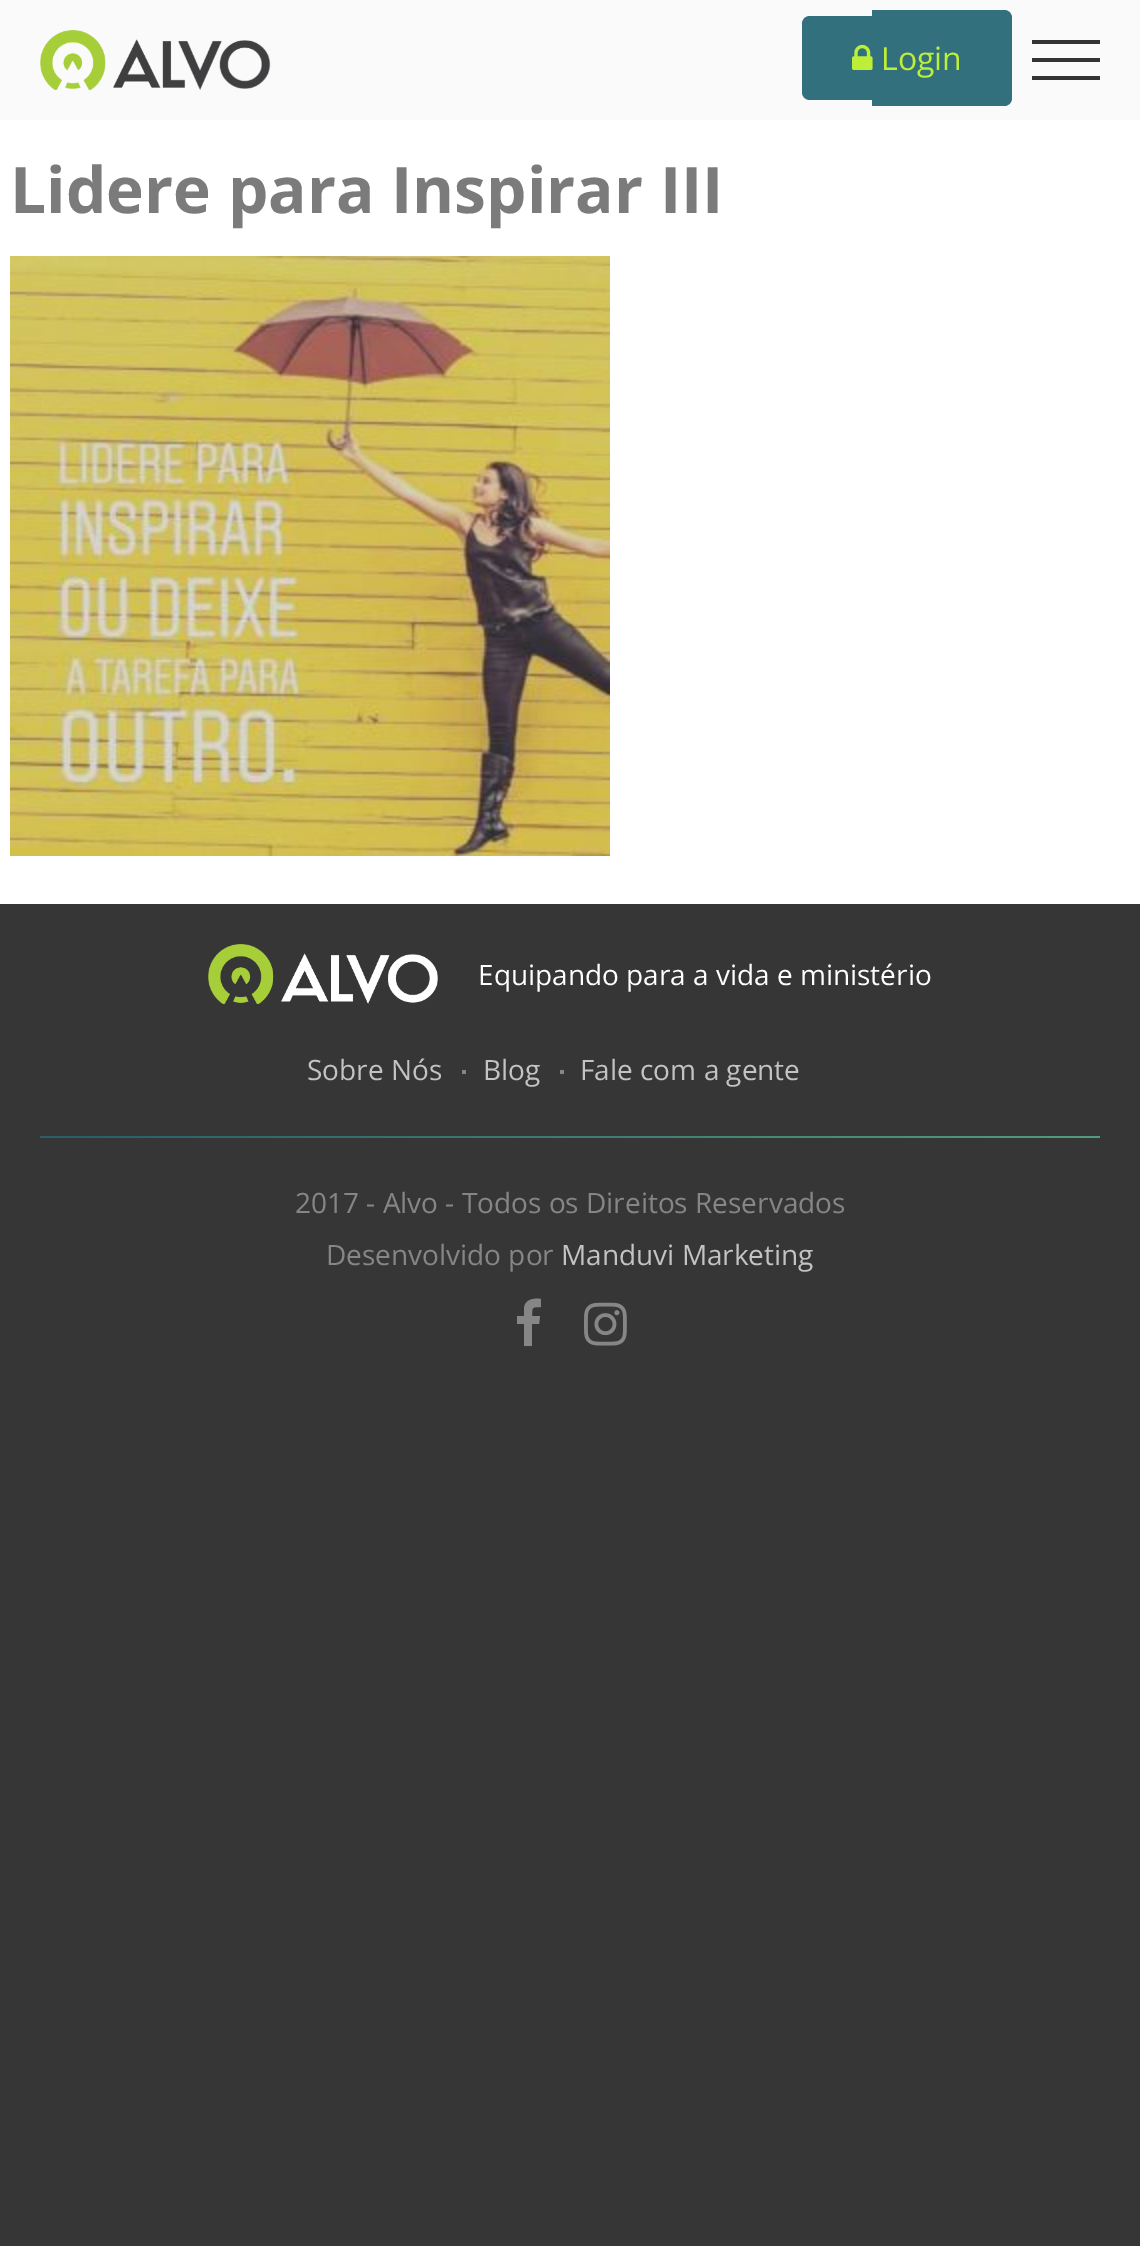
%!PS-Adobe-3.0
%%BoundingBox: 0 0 1140 2246
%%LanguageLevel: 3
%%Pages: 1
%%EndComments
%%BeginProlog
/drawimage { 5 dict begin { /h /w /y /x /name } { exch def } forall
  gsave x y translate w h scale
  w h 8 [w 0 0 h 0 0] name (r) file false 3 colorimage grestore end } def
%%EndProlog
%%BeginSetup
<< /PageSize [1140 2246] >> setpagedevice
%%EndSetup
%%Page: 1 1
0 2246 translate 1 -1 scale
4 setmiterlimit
0.212 setgray
0 0 1140 2246 rectfill
0.98 setgray
0 0 1140 120 rectfill
(images/1.raw) 40 30 231 60 drawimage
0.196 0.439 0.49 setrgbcolor
newpath 810 16 moveto 872 16 lineto 872 100 lineto 810 100 lineto 805.5 100 802 96.5 802 92 curveto 802 24 lineto 802 19.5 805.5 16 810 16 curveto closepath fill
newpath 872 10 moveto 1004 10 lineto 1008.5 10 1012 13.5 1012 18 curveto 1012 98 lineto 1012 102.5 1008.5 106 1004 106 curveto 872 106 lineto closepath fill
(images/2.raw) 852 44 21 26 drawimage
0.2 setgray
1032 40 68 4 rectfill
1032 58 68 4 rectfill
1032 76 68 4 rectfill
1 setgray
0 120 1140 784 rectfill
(images/3.raw) 10 256 600 600 drawimage
(images/4.raw) 208 944 230 60 drawimage
0.525 setgray
462 1070 4 4 rectfill
560 1070 4 4 rectfill
gsave newpath 40 1136 moveto 1100 1136 lineto 1100 1138 lineto 40 1138 lineto closepath clip newpath
<< /ShadingType 2 /ColorSpace /DeviceRGB /Coords [40 1137 1100 1137] /Extend [true true] /Function << /FunctionType 2 /Domain [0 1] /C0 [0.165 0.365 0.408] /C1 [0.322 0.616 0.49] /N 1 >> >> shfill grestore
newpath 541 1299 moveto 541 1307 lineto 532 1307 532 1307 532 1316 curveto 540 1316 lineto 539 1324 lineto 532 1324 lineto 532 1346 lineto 524 1346 lineto 524 1324 lineto 517 1324 lineto 517 1316 lineto 524 1316 lineto 524 1308 lineto 525 1299 534 1298 541 1299 curveto closepath fill
(images/5.raw) 584 1302 43 44 drawimage
/OpenSans-Regular [32 0 0 -32 0 0] selectfont
0.741 0.937 0.22 setrgbcolor
881 70 moveto (Login) show
/OpenSans-Bold [64 0 0 -64 0 0] selectfont
0.482 setgray
10 213 moveto (Lidere para Inspirar III) show
/OpenSans-Regular [28 0 0 -28 0 0] selectfont
1 setgray
478 985 moveto (Equipando para a vida e ministério) show
0.765 setgray
307 1080 moveto (Sobre Nós) show
483 1080 moveto (Blog) show
580 1080 moveto (Fale com a gente) show
0.525 setgray
295 1213 moveto (2017 - Alvo - Todos os Direitos Reservados) show
326 1265 moveto (Desenvolvido por) show
0.765 setgray
561 1265 moveto (Manduvi Marketing) show
showpage
%%EOF
